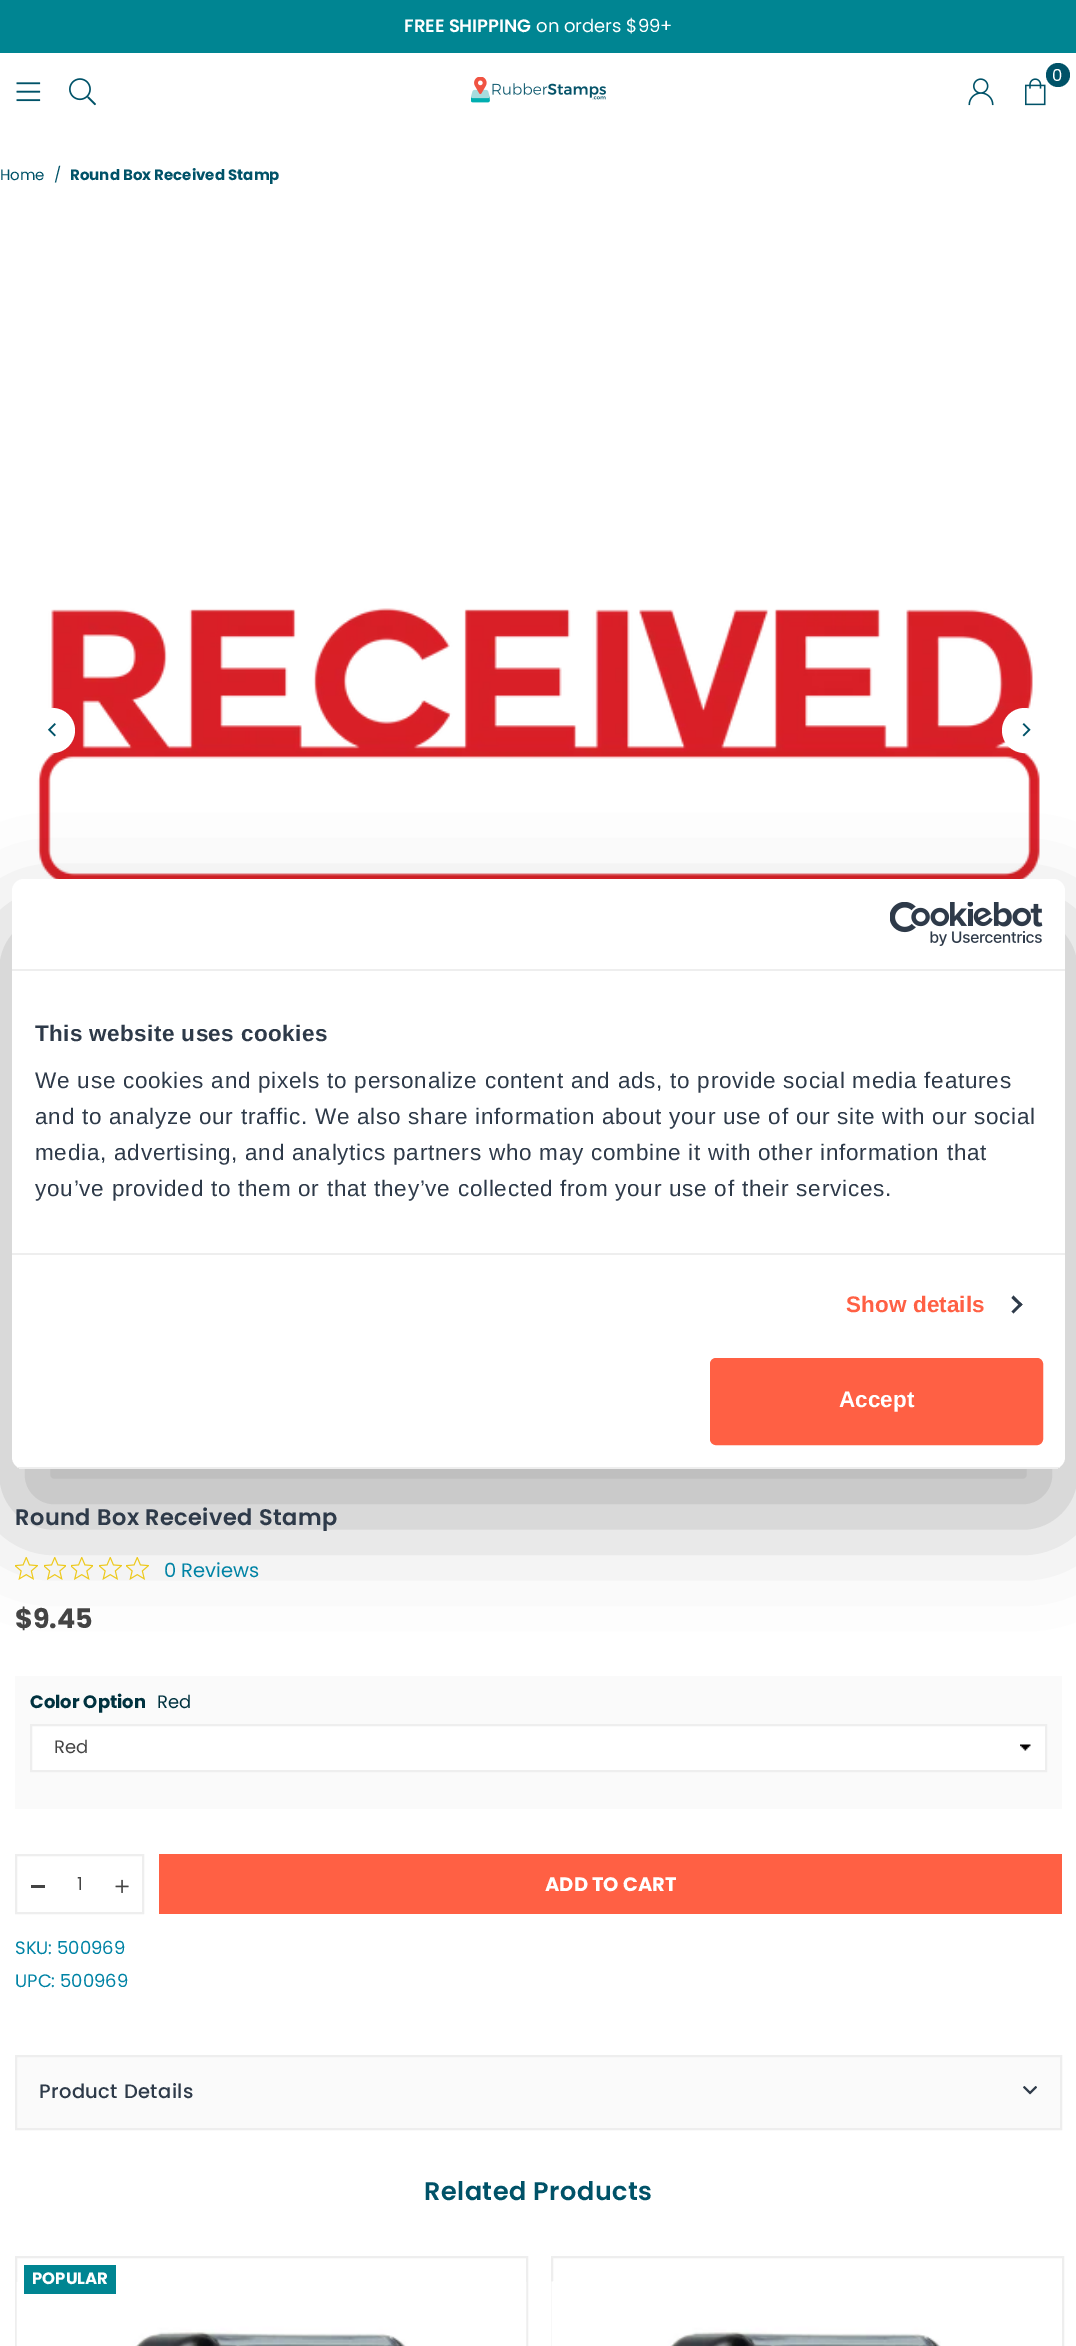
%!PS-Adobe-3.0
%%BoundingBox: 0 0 1076 2346
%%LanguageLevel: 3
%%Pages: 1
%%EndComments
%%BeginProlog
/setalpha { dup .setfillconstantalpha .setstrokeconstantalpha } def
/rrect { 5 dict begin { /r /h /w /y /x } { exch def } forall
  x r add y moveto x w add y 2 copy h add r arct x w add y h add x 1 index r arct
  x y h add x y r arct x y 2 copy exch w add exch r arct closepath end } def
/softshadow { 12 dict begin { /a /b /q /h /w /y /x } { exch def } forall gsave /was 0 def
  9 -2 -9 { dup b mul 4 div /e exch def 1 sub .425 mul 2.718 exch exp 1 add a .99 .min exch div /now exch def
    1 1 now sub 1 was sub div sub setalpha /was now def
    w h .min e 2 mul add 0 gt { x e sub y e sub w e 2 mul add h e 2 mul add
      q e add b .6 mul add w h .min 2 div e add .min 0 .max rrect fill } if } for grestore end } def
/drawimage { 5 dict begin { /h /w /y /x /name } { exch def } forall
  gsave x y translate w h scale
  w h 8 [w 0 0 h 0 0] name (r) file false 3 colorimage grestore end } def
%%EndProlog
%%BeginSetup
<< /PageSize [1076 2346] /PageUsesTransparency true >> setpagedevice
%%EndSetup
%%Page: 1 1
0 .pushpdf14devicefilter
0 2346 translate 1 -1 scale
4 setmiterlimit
1 setgray
0 0 1076 2346 rectfill
0 0.522 0.573 setrgbcolor
0 0 1076 53 rectfill
0 0.322 0.408 setrgbcolor
newpath 1058 75 12 0 360 arc closepath fill
(images/1.raw) 1025 78 21 28 drawimage
(images/2.raw) 968 78 26 28 drawimage
(images/3.raw) 16 82 25 20 drawimage
(images/4.raw) 69 78 27 28 drawimage
(images/5.raw) 471 77 135 26 drawimage
(images/6.raw) 37 608 1003 271 drawimage
1 setgray
newpath 52.5 730.5 22.5 0 360 arc closepath fill
(images/7.raw) 47 723 9 14 drawimage
newpath 1024.5 730.5 22.5 0 360 arc closepath fill
(images/8.raw) 1022 723 9 14 drawimage
(images/9.raw) 15 1557 23 23 drawimage
(images/10.raw) 44 1557 22 23 drawimage
(images/10.raw) 71 1557 22 23 drawimage
(images/9.raw) 99 1557 23 23 drawimage
(images/9.raw) 126 1557 23 23 drawimage
0.98 setgray
15 1676 1047 133 rectfill
1 setgray
32 1726 1013 44 rectfill
(images/11.raw) 1020 1744 11 7 drawimage
0.933 setgray
2 setlinewidth
31 1725 1015 46 rectstroke
16 1855 127 58 rectstroke
0.267 setgray
31 1885 14 3 rectfill
(images/12.raw) 115 1879 14 14 drawimage
1 0.376 0.267 setrgbcolor
159 1854 903 60 rectfill
0.98 setgray
newpath 16 2056 moveto 1061 2056 lineto 1061 2129 lineto 16 2129 lineto closepath gsave fill grestore
0.933 setgray
stroke
(images/13.raw) 1023 2086 14 9 drawimage
16 2257 511 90 rectstroke
(images/14.raw) 16 2282 511 64 drawimage
0 0.522 0.573 setrgbcolor
24 2265 92 29 rectfill
0.933 setgray
552 2257 511 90 rectstroke
(images/15.raw) 551 2281 390 65 drawimage
0 setgray
12 927 1053 590 12 51 0.3 softshadow
1 setgray
12 879 1053 590 12 rrect fill
0.933 setgray
12 969 1053 2 rectfill
(images/16.raw) 890 902 153 44 drawimage
12 1253 1053 2 rectfill
0.18 0.227 0.286 setrgbcolor
newpath 1013.5 1295.5 moveto 1022.5 1304.5 lineto 1020.5 1306.5 lineto 1011.5 1298 lineto closepath fill
newpath 1020.5 1302.5 moveto 1022.5 1304.5 lineto 1013.5 1313.5 lineto 1011.5 1311.5 lineto closepath fill
gsave
12 879 1053 590 12 rrect clip newpath
0.933 setgray
12 1467 1053 2 rectfill
grestore
1 0.376 0.267 setrgbcolor
711.5 1359.5 330 84 4.5 rrect gsave fill grestore
3 setlinewidth
stroke
/Poppins-SemiBold [18 0 0 -18 0 0] selectfont
1 setgray
404 32 moveto (FREE SHIPPING) show
/Poppins-Regular [18 0 0 -18 0 0] selectfont
536 32 moveto (on orders $99+) show
/Poppins-Regular [16.5 0 0 -16.5 0 0] selectfont
1052 81 moveto (0) show
/Poppins-Regular [15 0 0 -15 0 0] selectfont
0 0.322 0.408 setrgbcolor
0 180 moveto (Home) show
54 180 moveto (/) show
/Poppins-Bold [15 0 0 -15 0 0] selectfont
70 180 moveto (Round Box Received Stamp) show
/Poppins-SemiBold [22.5 0 0 -22.5 0 0] selectfont
0.18 0.227 0.286 setrgbcolor
15 1525 moveto 0.45 0 (Round Box Received Stamp) ashow
/Poppins-Regular [19.5 0 0 -19.5 0 0] selectfont
0 0.514 0.647 setrgbcolor
164 1577 moveto (0 Reviews) show
/Poppins-Bold [27 0 0 -27 0 0] selectfont
0.267 setgray
15 1628 moveto ($9.45) show
/Poppins-Bold [18 0 0 -18 0 0] selectfont
0 0.196 0.247 setrgbcolor
30 1708 moveto (Color Option) show
/Poppins-Regular [18 0 0 -18 0 0] selectfont
157 1708 moveto (Red) show
0.267 setgray
54 1753 moveto (Red) show
77 1890 moveto (1) show
/Poppins-Bold [19.5 0 0 -19.5 0 0] selectfont
1 setgray
545 1891 moveto (ADD TO CART) show
/Poppins-Regular [18 0 0 -18 0 0] selectfont
0 0.514 0.647 setrgbcolor
15 1954 moveto (SKU: 500969) show
15 1987 moveto (UPC: 500969) show
/Poppins-Medium [19.5 0 0 -19.5 0 0] selectfont
0.18 0.227 0.286 setrgbcolor
39 2098 moveto 0.4 0 (Product Details) ashow
/Poppins-SemiBold [25.5 0 0 -25.5 0 0] selectfont
0 0.322 0.408 setrgbcolor
424 2200 moveto 0.5 0 (Related Products) ashow
/Poppins-Bold [16.5 0 0 -16.5 0 0] selectfont
1 setgray
32 2284 moveto (POPULAR) show
/LiberationSans-Bold [22.5 0 0 -22.5 0 0] selectfont
0.18 0.227 0.286 setrgbcolor
35 1041 moveto 0.4 0 (This website uses cookies) ashow
/LiberationSans-Regular [22.5 0 0 -22.5 0 0] selectfont
35 1088 moveto 0.75 0 (We use cookies and pixels to personalize content and ads, to provide social media features) ashow
35 1124 moveto 0.75 0 (and to analyze our traffic. We also share information about your use of our site with our social) ashow
35 1160 moveto 0.75 0 (media, advertising, and analytics partners who may combine it with other information that) ashow
35 1196 moveto 0.75 0 (you’ve provided to them or that they’ve collected from your use of their services.) ashow
/LiberationSans-Bold [22.5 0 0 -22.5 0 0] selectfont
1 0.376 0.267 setrgbcolor
846 1312 moveto 0.1 0 (Show details) ashow
1 setgray
839 1407 moveto (Accept) show
.poppdf14devicefilter showpage
%%EOF
